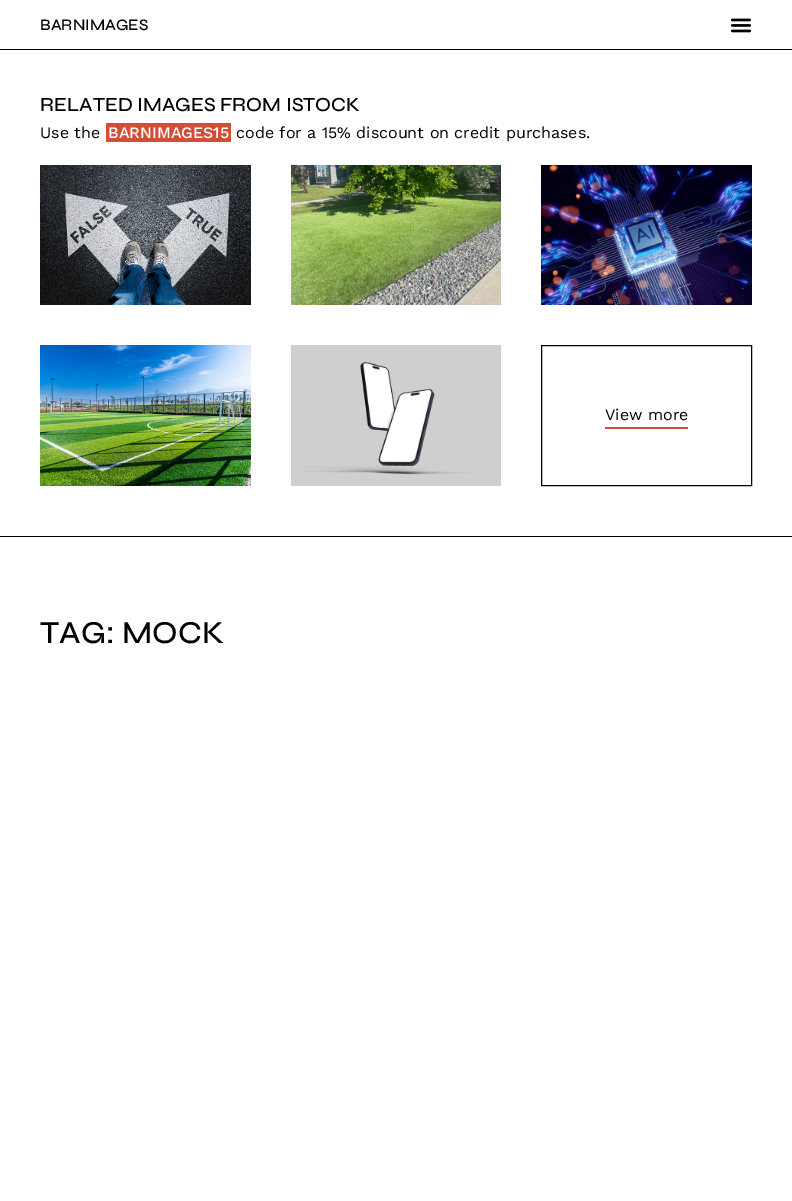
%!PS-Adobe-3.0
%%BoundingBox: 0 0 792 1201
%%LanguageLevel: 3
%%Pages: 1
%%EndComments
%%BeginProlog
/drawimage { 5 dict begin { /h /w /y /x /name } { exch def } forall
  gsave x y translate w h scale
  w h 8 [w 0 0 h 0 0] name (r) file false 3 colorimage grestore end } def
%%EndProlog
%%BeginSetup
<< /PageSize [792 1201] >> setpagedevice
%%EndSetup
%%Page: 1 1
0 1201 translate 1 -1 scale
4 setmiterlimit
1 setgray
0 0 792 1201 rectfill
0 setgray
0 49 792 1 rectfill
(images/1.raw) 730 18 22 15 drawimage
0 536 792 1 rectfill
0.827 0.306 0.212 setrgbcolor
106 123 125 19 rectfill
(images/2.raw) 40 165 211 140 drawimage
(images/3.raw) 291 165 210 140 drawimage
(images/4.raw) 541 165 211 140 drawimage
(images/5.raw) 40 345 211 141 drawimage
(images/6.raw) 291 345 210 141 drawimage
0 setgray
541.5 345.5 210 140 rectstroke
0.827 0.306 0.212 setrgbcolor
605 427 83 2 rectfill
/Syne-Medium [16 0 0 -16 0 0] selectfont
0 setgray
40 30 moveto (BARNIMAGES) show
/Syne-Medium [20 0 0 -20 0 0] selectfont
40 111 moveto (RELATED IMAGES FROM ISTOCK) show
/WorkSans-Regular [16 0 0 -16 0 0] selectfont
40 138 moveto (Use the) show
/WorkSans-Medium [16 0 0 -16 0 0] selectfont
1 setgray
108 138 moveto (BARNIMAGES15) show
/WorkSans-Regular [16 0 0 -16 0 0] selectfont
0 setgray
236 138 moveto (code for a 15% discount on credit purchases.) show
605 420 moveto (View more) show
/Syne-Medium [32 0 0 -32 0 0] selectfont
40 643 moveto (TAG: MOCK) show
showpage
%%EOF
